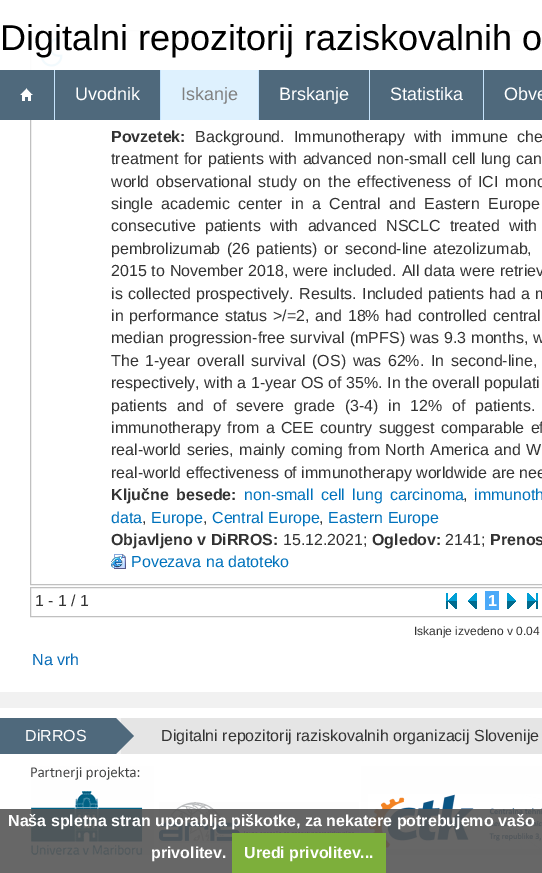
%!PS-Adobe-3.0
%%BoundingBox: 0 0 542 873
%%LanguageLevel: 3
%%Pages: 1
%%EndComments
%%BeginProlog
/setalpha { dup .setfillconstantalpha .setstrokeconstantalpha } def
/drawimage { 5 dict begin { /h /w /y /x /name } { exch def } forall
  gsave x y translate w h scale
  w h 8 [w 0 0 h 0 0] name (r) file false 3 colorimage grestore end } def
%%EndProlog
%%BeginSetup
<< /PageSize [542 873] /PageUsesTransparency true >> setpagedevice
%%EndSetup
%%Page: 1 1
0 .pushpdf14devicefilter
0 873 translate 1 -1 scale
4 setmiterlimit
0.945 setgray
0 0 542 873 rectfill
1 setgray
0 0 542 692 rectfill
0.753 setgray
30.5 30.5 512 554 rectstroke
(images/2.raw) 40 37 23 30 drawimage
0.95 setalpha
1 setgray
30 30 512 40 rectfill
1 setalpha
0.31 0.412 0.486 setrgbcolor
0 70 542 50 rectfill
(images/1.raw) 20 88 13 13 drawimage
0.776 0.894 0.992 setrgbcolor
54 70 1 50 rectfill
0.871 0.945 0.996 setrgbcolor
161 70 97 50 rectfill
0.776 0.894 0.992 setrgbcolor
160 70 1 50 rectfill
258 70 1 50 rectfill
369 70 1 50 rectfill
483 70 1 50 rectfill
(images/3.raw) 111 554 15 15 drawimage
0.753 setgray
30.5 587.5 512 29 rectstroke
(images/4.raw) 446 593 11 16 drawimage
(images/5.raw) 468 593 9 16 drawimage
0.294 0.663 0.973 setrgbcolor
485 591 14 19 rectfill
(images/6.raw) 507 593 9 16 drawimage
(images/7.raw) 527 593 11 16 drawimage
1 setgray
0 708 542 165 rectfill
0.945 setgray
116 718 5 36 rectfill
0.31 0.412 0.486 setrgbcolor
0 718 116 36 rectfill
0.898 setgray
121 718 421 36 rectfill
0.31 0.412 0.486 setrgbcolor
newpath 116 754 moveto 116 718 lineto 134 736 lineto closepath fill
(images/8.raw) 31 766 511 89 drawimage
0.9 setalpha
0.337 setgray
0 809 542 64 rectfill
1 setalpha
0.49 0.686 0.231 setrgbcolor
232 833 154 40 rectfill
/LiberationSans-Regular [36 0 0 -36 0 0] selectfont
0 setgray
0 50 moveto (Digitalni repozitorij raziskovalnih o) show
/LiberationSans-Regular [18 0 0 -18 0 0] selectfont
1 setgray
75 100 moveto (Uvodnik) show
0.502 setgray
181 100 moveto (Iskanje) show
1 setgray
279 100 moveto (Brskanje) show
390 100 moveto (Statistika) show
504 100 moveto (Obve) show
/LiberationSans-Bold [16 0 0 -16 0 0] selectfont
0.2 setgray
111 142 moveto (Povzetek:) show
/LiberationSans-Regular [16 0 0 -16 0 0] selectfont
195 142 moveto 4.5 0 32 (Background. Immunotherapy with immune che) widthshow
111 164 moveto 0.75 0 32 (treatment for patients with advanced non-small cell lung can) widthshow
111 187 moveto 2.5 0 32 (world observational study on the effectiveness of ICI mono) widthshow
111 209 moveto 4 0 32 (single academic center in a Central and Eastern Europe) widthshow
111 231 moveto 4.75 0 32 (consecutive patients with advanced NSCLC treated with) widthshow
111 254 moveto 2 0 32 (pembrolizumab \(26 patients\) or second-line atezolizumab,) widthshow
111 276 moveto 0.4 0 32 (2015 to November 2018, were included. All data were retriev) widthshow
111 299 moveto 0.75 0 32 (is collected prospectively. Results. Included patients had a m) widthshow
111 321 moveto 1.25 0 32 (in performance status >/=2, and 18% had controlled central) widthshow
111 343 moveto 0.75 0 32 (median progression-free survival \(mPFS\) was 9.3 months, w) widthshow
111 366 moveto 2.25 0 32 (The 1-year overall survival \(OS\) was 62%. In second-line,) widthshow
111 388 moveto 0.1 0 32 (respectively, with a 1-year OS of 35%. In the overall populati) widthshow
111 411 moveto 5.25 0 32 (patients and of severe grade \(3-4\) in 12% of patients.) widthshow
111 433 moveto 1.75 0 32 (immunotherapy from a CEE country suggest comparable ef) widthshow
111 455 moveto 1 0 32 (real-world series, mainly coming from North America and W) widthshow
111 478 moveto (real-world effectiveness of immunotherapy worldwide are nee) show
/LiberationSans-Bold [16 0 0 -16 0 0] selectfont
111 500 moveto 3 0 32 (Ključne besede:) widthshow
/LiberationSans-Regular [16 0 0 -16 0 0] selectfont
0 0.447 0.737 setrgbcolor
244 500 moveto 3 0 32 (non-small cell lung carcinoma) widthshow
0.2 setgray
463 500 moveto (,) show
0 0.447 0.737 setrgbcolor
474 500 moveto (immunoth) show
111 523 moveto (data) show
0.2 setgray
142 523 moveto (,) show
0 0.447 0.737 setrgbcolor
151 523 moveto (Europe) show
0.2 setgray
203 523 moveto (,) show
0 0.447 0.737 setrgbcolor
212 523 moveto (Central Europe) show
0.2 setgray
319 523 moveto (,) show
0 0.447 0.737 setrgbcolor
328 523 moveto (Eastern Europe) show
/LiberationSans-Bold [16 0 0 -16 0 0] selectfont
0.2 setgray
111 545 moveto (Objavljeno v DiRROS:) show
/LiberationSans-Regular [16 0 0 -16 0 0] selectfont
283 545 moveto (15.12.2021;) show
/LiberationSans-Bold [16 0 0 -16 0 0] selectfont
372 545 moveto (Ogledov:) show
/LiberationSans-Regular [16 0 0 -16 0 0] selectfont
445 545 moveto (2141;) show
/LiberationSans-Bold [16 0 0 -16 0 0] selectfont
490 545 moveto (Prenos) show
/LiberationSans-Regular [16 0 0 -16 0 0] selectfont
0 0.447 0.737 setrgbcolor
131 567 moveto (Povezava na datoteko) show
0.2 setgray
35 606 moveto (1 - 1 / 1) show
/LiberationSans-Bold [16 0 0 -16 0 0] selectfont
1 setgray
488 606 moveto (1) show
/LiberationSans-Regular [12 0 0 -12 0 0] selectfont
0.2 setgray
414 635 moveto (Iskanje izvedeno v 0.04) show
/LiberationSans-Regular [16 0 0 -16 0 0] selectfont
0.039 0.427 0.722 setrgbcolor
32 665 moveto (Na vrh) show
1 setgray
25 741 moveto (DiRROS) show
0.2 setgray
161 741 moveto (Digitalni repozitorij raziskovalnih organizacij Slovenije) show
/LiberationSans-Bold [16 0 0 -16 0 0] selectfont
1 setgray
8 826 moveto (Naša spletna stran uporablja piškotke, za nekatere potrebujemo vašo) show
151 858 moveto (privolitev.) show
244 858 moveto (Uredi privolitev...) show
.poppdf14devicefilter showpage
%%EOF
